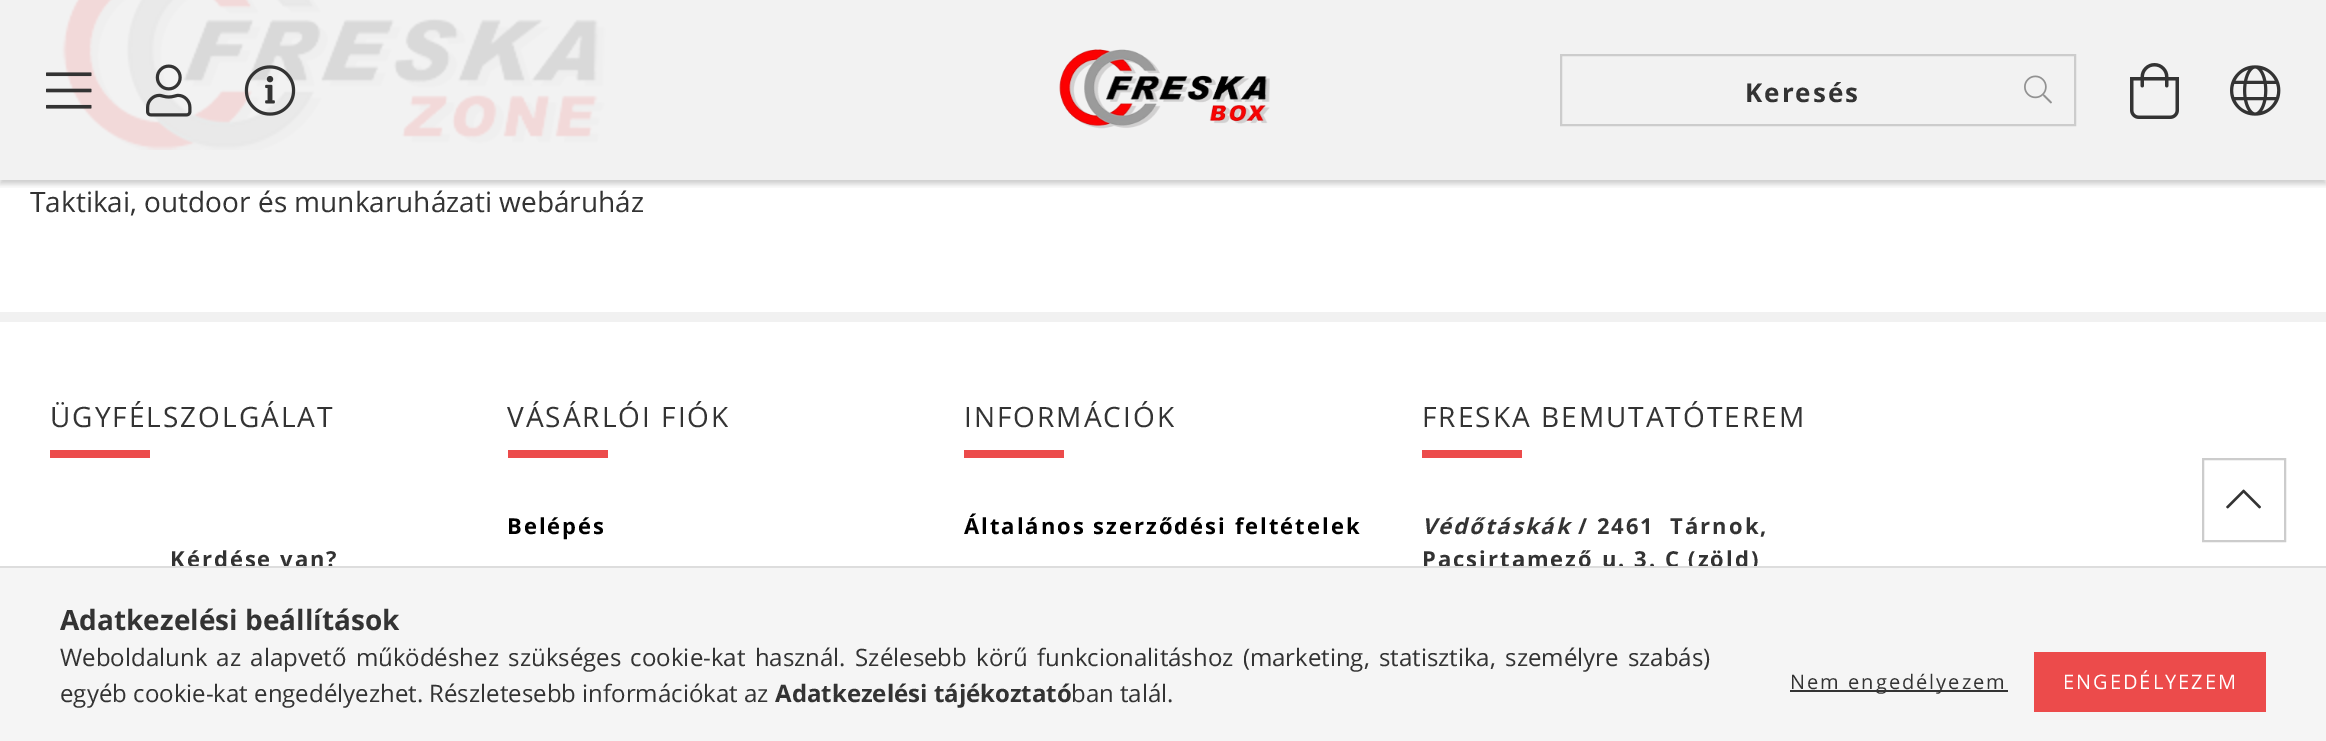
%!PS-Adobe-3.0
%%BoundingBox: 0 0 2326 741
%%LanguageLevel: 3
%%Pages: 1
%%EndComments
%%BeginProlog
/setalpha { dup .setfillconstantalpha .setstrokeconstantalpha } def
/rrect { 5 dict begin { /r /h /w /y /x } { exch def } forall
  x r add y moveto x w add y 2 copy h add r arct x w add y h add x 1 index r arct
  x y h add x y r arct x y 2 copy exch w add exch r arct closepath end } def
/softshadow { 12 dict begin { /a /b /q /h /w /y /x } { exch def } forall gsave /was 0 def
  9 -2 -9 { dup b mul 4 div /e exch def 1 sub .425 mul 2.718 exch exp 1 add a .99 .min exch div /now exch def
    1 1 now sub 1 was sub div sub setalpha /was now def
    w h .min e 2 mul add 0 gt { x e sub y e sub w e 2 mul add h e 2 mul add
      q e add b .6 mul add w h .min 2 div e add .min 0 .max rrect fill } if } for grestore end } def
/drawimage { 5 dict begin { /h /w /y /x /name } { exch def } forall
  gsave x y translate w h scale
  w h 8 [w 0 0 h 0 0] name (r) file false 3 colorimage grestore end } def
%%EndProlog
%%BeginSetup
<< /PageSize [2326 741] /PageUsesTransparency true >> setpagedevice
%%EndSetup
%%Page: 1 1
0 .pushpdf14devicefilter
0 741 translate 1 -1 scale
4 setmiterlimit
1 setgray
0 0 2326 741 rectfill
0.949 setgray
0 0 2326 180 rectfill
(images/8.raw) 61 0 545 150 drawimage
gsave
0 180 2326 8 rectclip
0 setgray
0 4 2326 180 0 3 0.2 softshadow
grestore
(images/1.raw) 46 72 46 37 drawimage
(images/2.raw) 146 64 46 53 drawimage
(images/3.raw) 244 65 52 51 drawimage
(images/4.raw) 1059 49 211 80 drawimage
0.8 setgray
2 setlinewidth
1561 55 514 70 rectstroke
(images/5.raw) 2024 75 28 29 drawimage
(images/6.raw) 2130 63 49 56 drawimage
(images/7.raw) 2230 65 51 51 drawimage
0.945 setgray
0 312 2326 10 rectfill
0.925 0.294 0.294 setrgbcolor
50 450 100 8 rectfill
508 450 100 8 rectfill
964 450 100 8 rectfill
1422 450 100 8 rectfill
0.8 setgray
2203 459 82 82 rectstroke
(images/9.raw) 2226 489 35 20 drawimage
/OpenSans-Bold [26 0 0 -26 0 0] selectfont
0.2 setgray
1745 102 moveto 2 0 (Keresés) ashow
/OpenSans-Regular [28 0 0 -28 0 0] selectfont
30 212 moveto (Taktikai, outdoor és munkaruházati webáruház) show
50 427 moveto 2 0 (ÜGYFÉLSZOLGÁLAT) ashow
/OpenSans-Bold [22 0 0 -22 0 0] selectfont
170 567 moveto 2 0 (Kérdése van?) ashow
/OpenSans-Regular [28 0 0 -28 0 0] selectfont
507 427 moveto 2 0 (VÁSÁRLÓI FIÓK) ashow
/OpenSans-Bold [22 0 0 -22 0 0] selectfont
0 setgray
507 534 moveto 2 0 (Belépés) ashow
/OpenSans-Regular [28 0 0 -28 0 0] selectfont
0.2 setgray
964 427 moveto 2 0 (INFORMÁCIÓK) ashow
/OpenSans-Bold [22 0 0 -22 0 0] selectfont
0 setgray
964 534 moveto 2 0 (Általános szerződési feltételek) ashow
/OpenSans-Regular [28 0 0 -28 0 0] selectfont
0.2 setgray
1422 427 moveto 2 0 (FRESKA BEMUTATÓTEREM) ashow
/OpenSans-BoldItalic [22 0 0 -22 0 0] selectfont
1422 534 moveto 2 0 (Védőtáskák) ashow
/OpenSans-Bold [22 0 0 -22 0 0] selectfont
1578 534 moveto 2 0 (/ 2461  Tárnok,) ashow
1422 567 moveto 2 0 (Pacsirtamező u. 3. C \(zöld\)) ashow
0.961 setgray
0 568 2326 173 rectfill
0.867 setgray
0 566 2326 2 rectfill
/OpenSans-Bold [28 0 0 -28 0 0] selectfont
0.2 setgray
60 630 moveto (Adatkezelési beállítások) show
/OpenSans-Regular [24 0 0 -24 0 0] selectfont
60 666 moveto 3.1 0 32 (Weboldalunk az alapvető működéshez szükséges cookie-kat használ. Szélesebb körű funkcionalitáshoz \(marketing, statisztika, személyre szabás\)) widthshow
60 702 moveto (egyéb cookie-kat engedélyezhet. Részletesebb információkat az) show
/OpenSans-Bold [24 0 0 -24 0 0] selectfont
775 702 moveto (Adatkezelési tájékoztató) show
/OpenSans-Regular [24 0 0 -24 0 0] selectfont
1071 702 moveto (ban talál.) show
1790 690 218 2 rectfill
/OpenSans-Regular [20 0 0 -20 0 0] selectfont
1790 689 moveto 2 0 (Nem engedélyezem) ashow
0.925 0.294 0.294 setrgbcolor
2034 652 232 60 rectfill
1 setgray
2063 689 moveto 2 0 (ENGEDÉLYEZEM) ashow
.poppdf14devicefilter showpage
%%EOF
